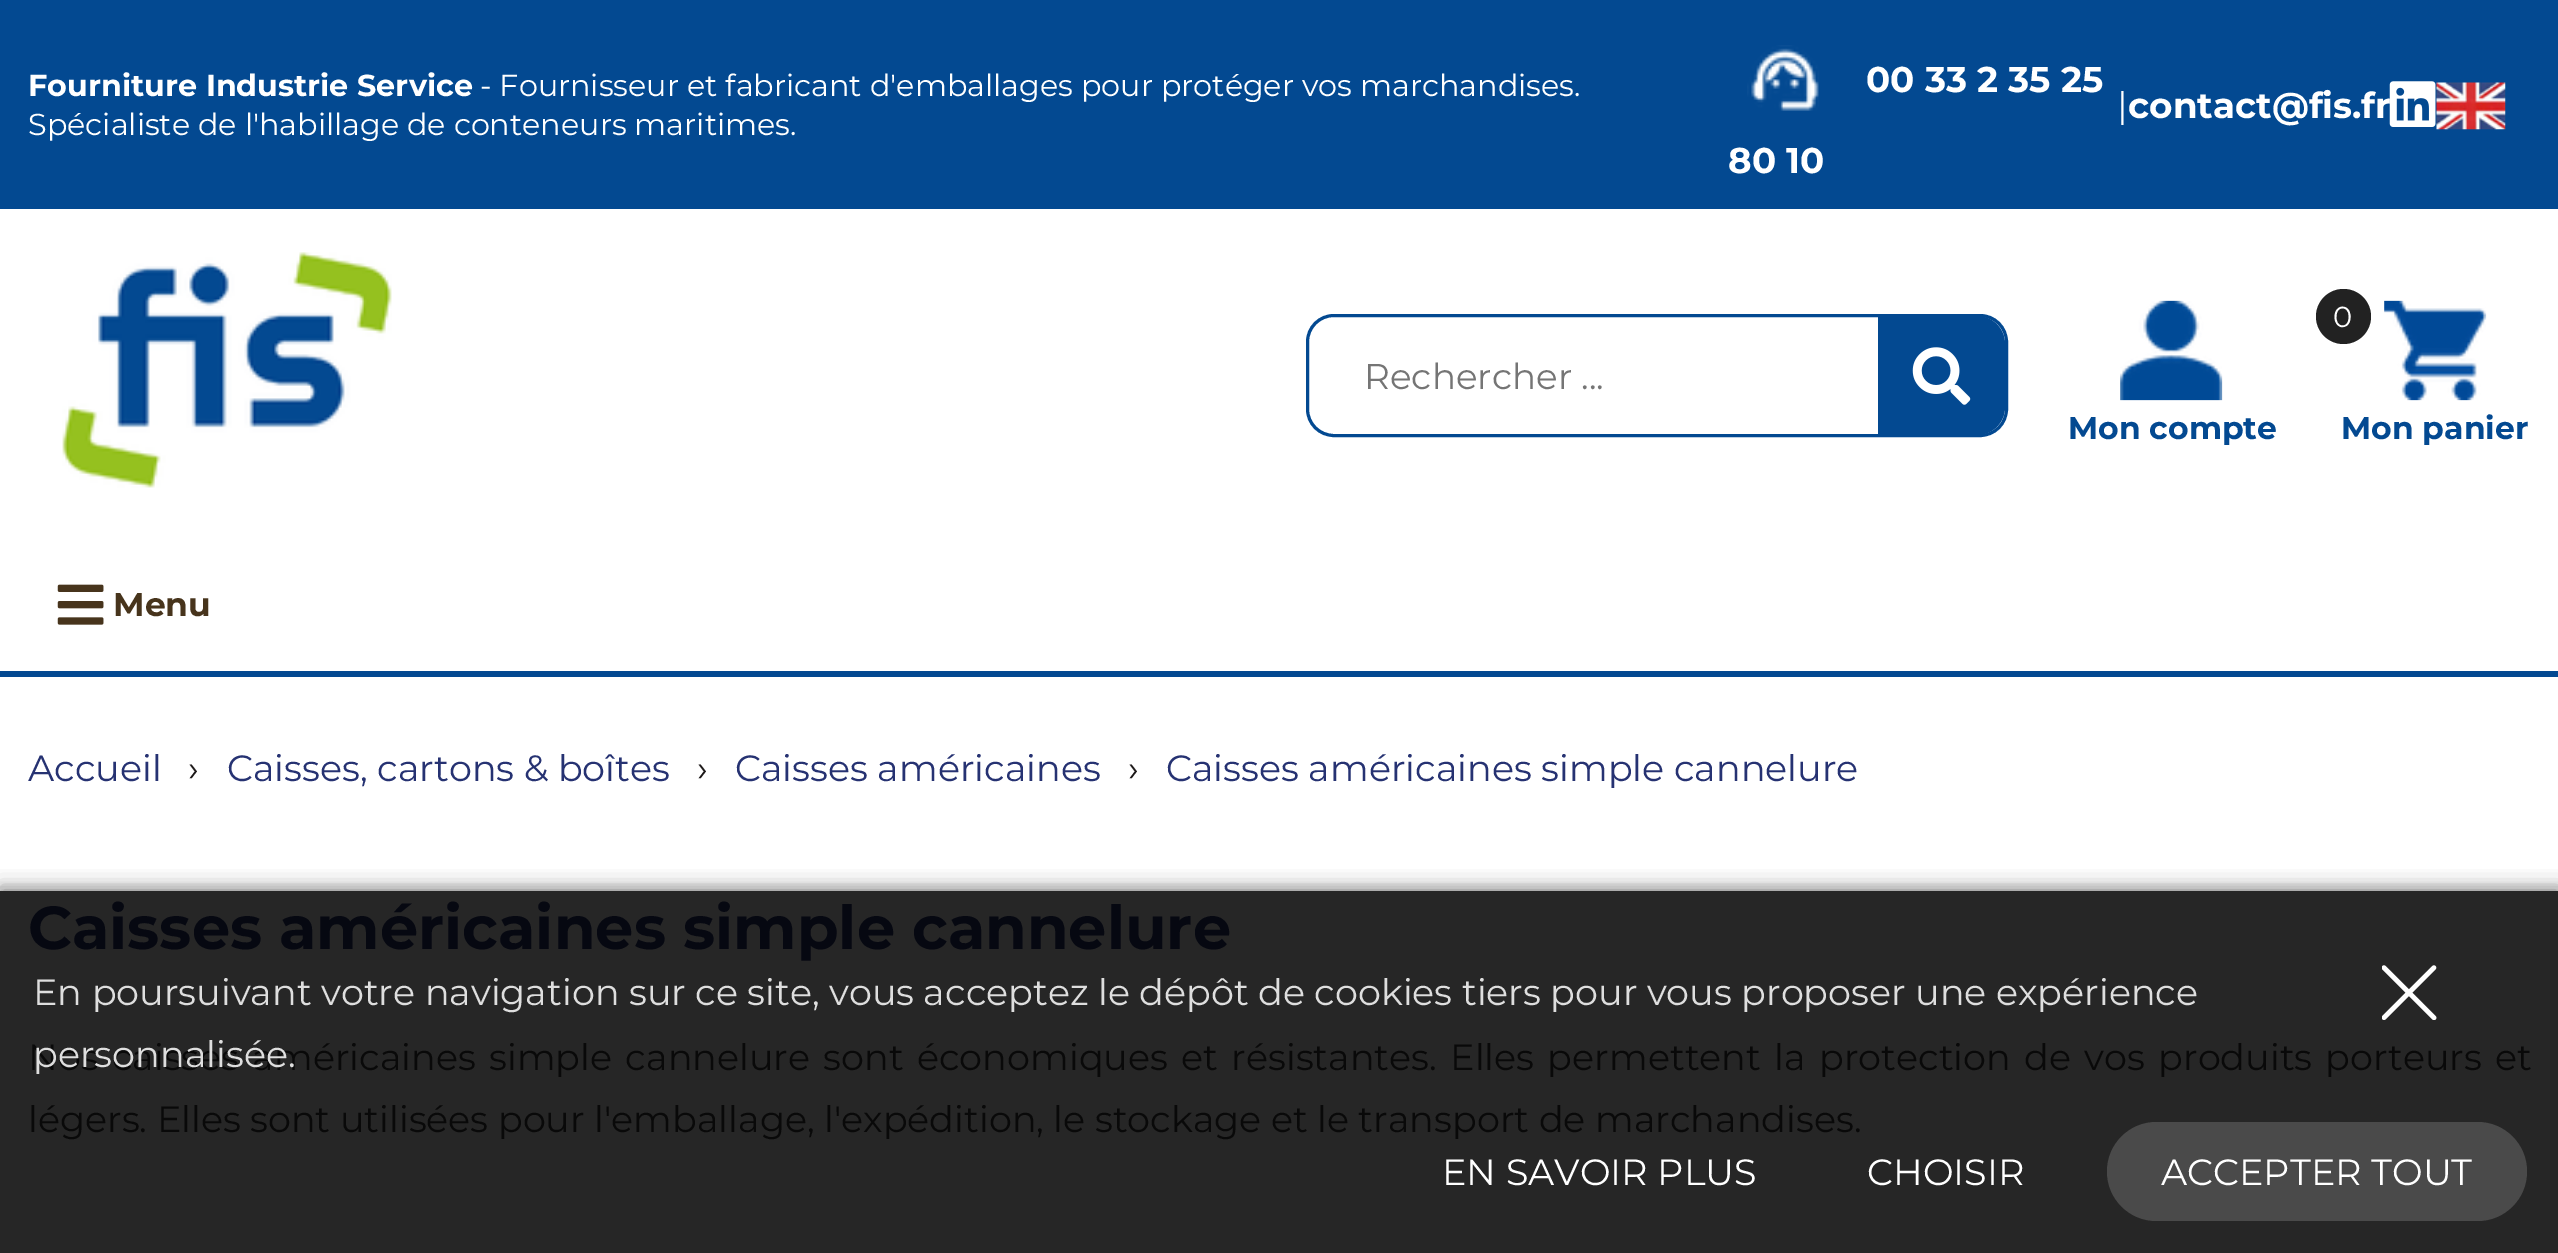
%!PS-Adobe-3.0
%%BoundingBox: 0 0 2558 1253
%%LanguageLevel: 3
%%Pages: 1
%%EndComments
%%BeginProlog
/setalpha { dup .setfillconstantalpha .setstrokeconstantalpha } def
/rrect { 5 dict begin { /r /h /w /y /x } { exch def } forall
  x r add y moveto x w add y 2 copy h add r arct x w add y h add x 1 index r arct
  x y h add x y r arct x y 2 copy exch w add exch r arct closepath end } def
/softshadow { 12 dict begin { /a /b /q /h /w /y /x } { exch def } forall gsave /was 0 def
  9 -2 -9 { dup b mul 4 div /e exch def 1 sub .425 mul 2.718 exch exp 1 add a .99 .min exch div /now exch def
    1 1 now sub 1 was sub div sub setalpha /was now def
    w h .min e 2 mul add 0 gt { x e sub y e sub w e 2 mul add h e 2 mul add
      q e add b .6 mul add w h .min 2 div e add .min 0 .max rrect fill } if } for grestore end } def
/drawimage { 5 dict begin { /h /w /y /x /name } { exch def } forall
  gsave x y translate w h scale
  w h 8 [w 0 0 h 0 0] name (r) file false 3 colorimage grestore end } def
%%EndProlog
%%BeginSetup
<< /PageSize [2558 1253] /PageUsesTransparency true >> setpagedevice
%%EndSetup
%%Page: 1 1
0 .pushpdf14devicefilter
0 1253 translate 1 -1 scale
4 setmiterlimit
1 setgray
0 0 2558 1253 rectfill
0.149 setgray
0 891 2558 362 rectfill
0.012 0.286 0.569 setrgbcolor
0 0 2558 209 rectfill
(images/1.raw) 1747 45 72 66 drawimage
(images/3.raw) 2436 82 70 48 drawimage
(images/4.raw) 62 252 330 236 drawimage
3 setlinewidth
1307.5 315.5 699 120 26.5 rrect stroke
newpath 1878 316 moveto 1977 316 lineto 1992.5 316 2005 328.5 2005 344 curveto 2005 407 lineto 2005 422.5 1992.5 435 1977 435 curveto 1878 435 lineto closepath fill
(images/5.raw) 1912 347 59 58 drawimage
0.133 setgray
newpath 2343.5 316.5 27.5 0 360 arc closepath fill
(images/6.raw) 2384 300 103 101 drawimage
(images/7.raw) 2120 300 103 101 drawimage
0.012 0.286 0.569 setrgbcolor
0 671 2558 6 rectfill
(images/8.raw) 57 584 47 41 drawimage
gsave
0 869 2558 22 rectclip
0 setgray
0 886 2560 363 0 11 0.3 softshadow
grestore
gsave
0 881 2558 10 rectclip
0 setgray
0 891 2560 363 0 7 0.3 softshadow
grestore
(images/9.raw) 2382 965 55 55 drawimage
0.29 setgray
2107 1122 420 99 49.5 rrect fill
/Montserrat-Bold [30.25 0 0 -30.25 0 0] selectfont
1 setgray
28 96 moveto (Fourniture Industrie Service) show
/Montserrat-Regular [30.25 0 0 -30.25 0 0] selectfont
480 96 moveto (- Fournisseur et fabricant d'emballages pour protéger vos marchandises.) show
28 135 moveto (Spécialiste de l'habillage de conteneurs maritimes.) show
/Montserrat-Bold [35.75 0 0 -35.75 0 0] selectfont
1866 92 moveto (00 33 2 35 25) show
1728 173 moveto (80 10) show
/Montserrat-Regular [36.52 0 0 -36.52 0 0] selectfont
2117 118 moveto (|) show
/Montserrat-Bold [35.75 0 0 -35.75 0 0] selectfont
2128 118 moveto (contact@fis.fr) show
(images/2.raw) 2389 81 47 46 drawimage
/Montserrat-Regular [35.75 0 0 -35.75 0 0] selectfont
0.459 setgray
1364 389 moveto (Rechercher ...) show
/Montserrat-Regular [29 0 0 -29 0 0] selectfont
1 setgray
2333 327 moveto (0) show
/Montserrat-Bold [31.5 0 0 -31.5 0 0] selectfont
0.012 0.286 0.569 setrgbcolor
2341 439 moveto (Mon panier) show
2068 439 moveto (Mon compte) show
/Montserrat-Bold [33 0 0 -33 0 0] selectfont
0.278 0.204 0.11 setrgbcolor
113 616 moveto (Menu) show
/Montserrat-Regular [36.52 0 0 -36.52 0 0] selectfont
0.149 0.196 0.447 setrgbcolor
28 781 moveto (Accueil) show
0.114 0.098 0.098 setrgbcolor
188 781 moveto (›) show
0.149 0.196 0.447 setrgbcolor
227 781 moveto (Caisses, cartons & boîtes) show
0.114 0.098 0.098 setrgbcolor
697 781 moveto (›) show
0.149 0.196 0.447 setrgbcolor
735 781 moveto (Caisses américaines) show
0.114 0.098 0.098 setrgbcolor
1128 781 moveto (›) show
0.149 0.196 0.447 setrgbcolor
1166 781 moveto (Caisses américaines simple cannelure) show
/Montserrat-Bold [60.5 0 0 -60.5 0 0] selectfont
0.024 0.031 0.067 setrgbcolor
28 949 moveto (Caisses américaines simple cannelure) show
/Montserrat-Regular [36.52 0 0 -36.52 0 0] selectfont
0.035 setgray
28 1070 moveto 3.75 0 32 (Nos caisses américaines simple cannelure sont économiques et résistantes. Elles permettent la protection de vos produits porteurs et) widthshow
28 1132 moveto -0.1 0 32 (légers. Elles sont utilisées pour l'emballage, l'expédition, le stockage et le transport de marchandises.) widthshow
0.871 setgray
33 1005 moveto -0.1 0 32 (En poursuivant votre navigation sur ce site, vous acceptez le dépôt de cookies tiers pour vous proposer une expérience) widthshow
33 1067 moveto (personnalisée.) show
1 setgray
1442 1185 moveto (EN SAVOIR PLUS) show
1867 1185 moveto (CHOISIR) show
2161 1185 moveto (ACCEPTER TOUT) show
.poppdf14devicefilter showpage
%%EOF
